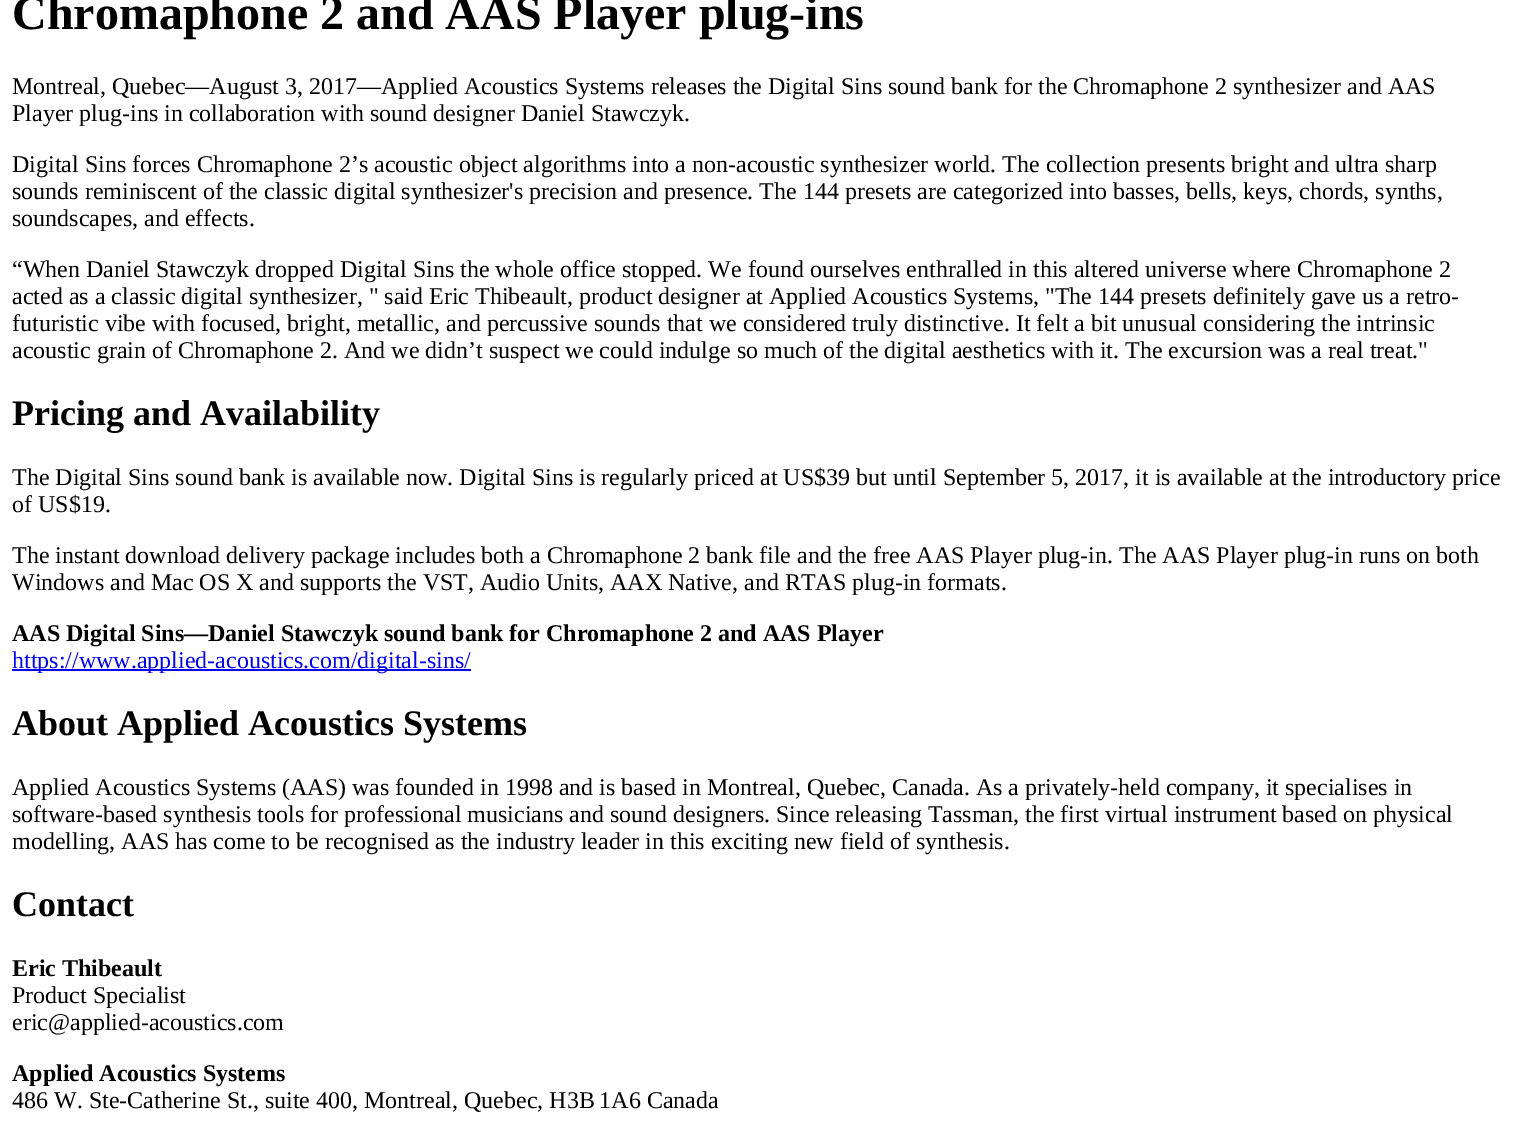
%!PS-Adobe-3.0
%%BoundingBox: 0 0 1513 1127
%%LanguageLevel: 3
%%Pages: 1
%%EndComments
%%BeginProlog
%%EndProlog
%%BeginSetup
<< /PageSize [1513 1127] >> setpagedevice
%%EndSetup
%%Page: 1 1
0 1127 translate 1 -1 scale
4 setmiterlimit
1 setgray
0 0 1513 1127 rectfill
0 0 0.933 setrgbcolor
12 669 459 2 rectfill
/LiberationSerif-Bold [48 0 0 -48 0 0] selectfont
0 setgray
12 29 moveto (Chromaphone 2 and AAS Player plug-ins) show
/LiberationSerif-Regular [24 0 0 -24 0 0] selectfont
12 94 moveto (Montreal, Quebec—August 3, 2017—Applied Acoustics Systems releases the Digital Sins sound bank for the Chromaphone 2 synthesizer and AAS) show
12 121 moveto (Player plug-ins in collaboration with sound designer Daniel Stawczyk.) show
12 172 moveto (Digital Sins forces Chromaphone 2’s acoustic object algorithms into a non-acoustic synthesizer world. The collection presents bright and ultra sharp) show
12 199 moveto (sounds reminiscent of the classic digital synthesizer's precision and presence. The 144 presets are categorized into basses, bells, keys, chords, synths,) show
12 226 moveto (soundscapes, and effects.) show
12 277 moveto (“When Daniel Stawczyk dropped Digital Sins the whole office stopped. We found ourselves enthralled in this altered universe where Chromaphone 2) show
12 304 moveto (acted as a classic digital synthesizer, " said Eric Thibeault, product designer at Applied Acoustics Systems, "The 144 presets definitely gave us a retro-) show
12 331 moveto (futuristic vibe with focused, bright, metallic, and percussive sounds that we considered truly distinctive. It felt a bit unusual considering the intrinsic) show
12 358 moveto (acoustic grain of Chromaphone 2. And we didn’t suspect we could indulge so much of the digital aesthetics with it. The excursion was a real treat.") show
/LiberationSerif-Bold [36 0 0 -36 0 0] selectfont
12 425 moveto (Pricing and Availability) show
/LiberationSerif-Regular [24 0 0 -24 0 0] selectfont
12 485 moveto (The Digital Sins sound bank is available now. Digital Sins is regularly priced at US$39 but until September 5, 2017, it is available at the introductory price) show
12 512 moveto (of US$19.) show
12 563 moveto (The instant download delivery package includes both a Chromaphone 2 bank file and the free AAS Player plug-in. The AAS Player plug-in runs on both) show
12 590 moveto (Windows and Mac OS X and supports the VST, Audio Units, AAX Native, and RTAS plug-in formats.) show
/LiberationSerif-Bold [24 0 0 -24 0 0] selectfont
12 641 moveto (AAS Digital Sins—Daniel Stawczyk sound bank for Chromaphone 2 and AAS Player) show
/LiberationSerif-Regular [24 0 0 -24 0 0] selectfont
0 0 0.933 setrgbcolor
12 668 moveto (https://www.applied-acoustics.com/digital-sins/) show
/LiberationSerif-Bold [36 0 0 -36 0 0] selectfont
0 setgray
12 735 moveto (About Applied Acoustics Systems) show
/LiberationSerif-Regular [24 0 0 -24 0 0] selectfont
12 795 moveto (Applied Acoustics Systems \(AAS\) was founded in 1998 and is based in Montreal, Quebec, Canada. As a privately-held company, it specialises in) show
12 822 moveto (software-based synthesis tools for professional musicians and sound designers. Since releasing Tassman, the first virtual instrument based on physical) show
12 849 moveto (modelling, AAS has come to be recognised as the industry leader in this exciting new field of synthesis.) show
/LiberationSerif-Bold [36 0 0 -36 0 0] selectfont
12 916 moveto (Contact) show
/LiberationSerif-Bold [24 0 0 -24 0 0] selectfont
12 976 moveto (Eric Thibeault) show
/LiberationSerif-Regular [24 0 0 -24 0 0] selectfont
12 1003 moveto (Product Specialist) show
12 1030 moveto (eric@applied-acoustics.com) show
/LiberationSerif-Bold [24 0 0 -24 0 0] selectfont
12 1081 moveto (Applied Acoustics Systems) show
/LiberationSerif-Regular [24 0 0 -24 0 0] selectfont
12 1108 moveto (486 W. Ste-Catherine St., suite 400, Montreal, Quebec, H3B 1A6 Canada) show
showpage
%%EOF
